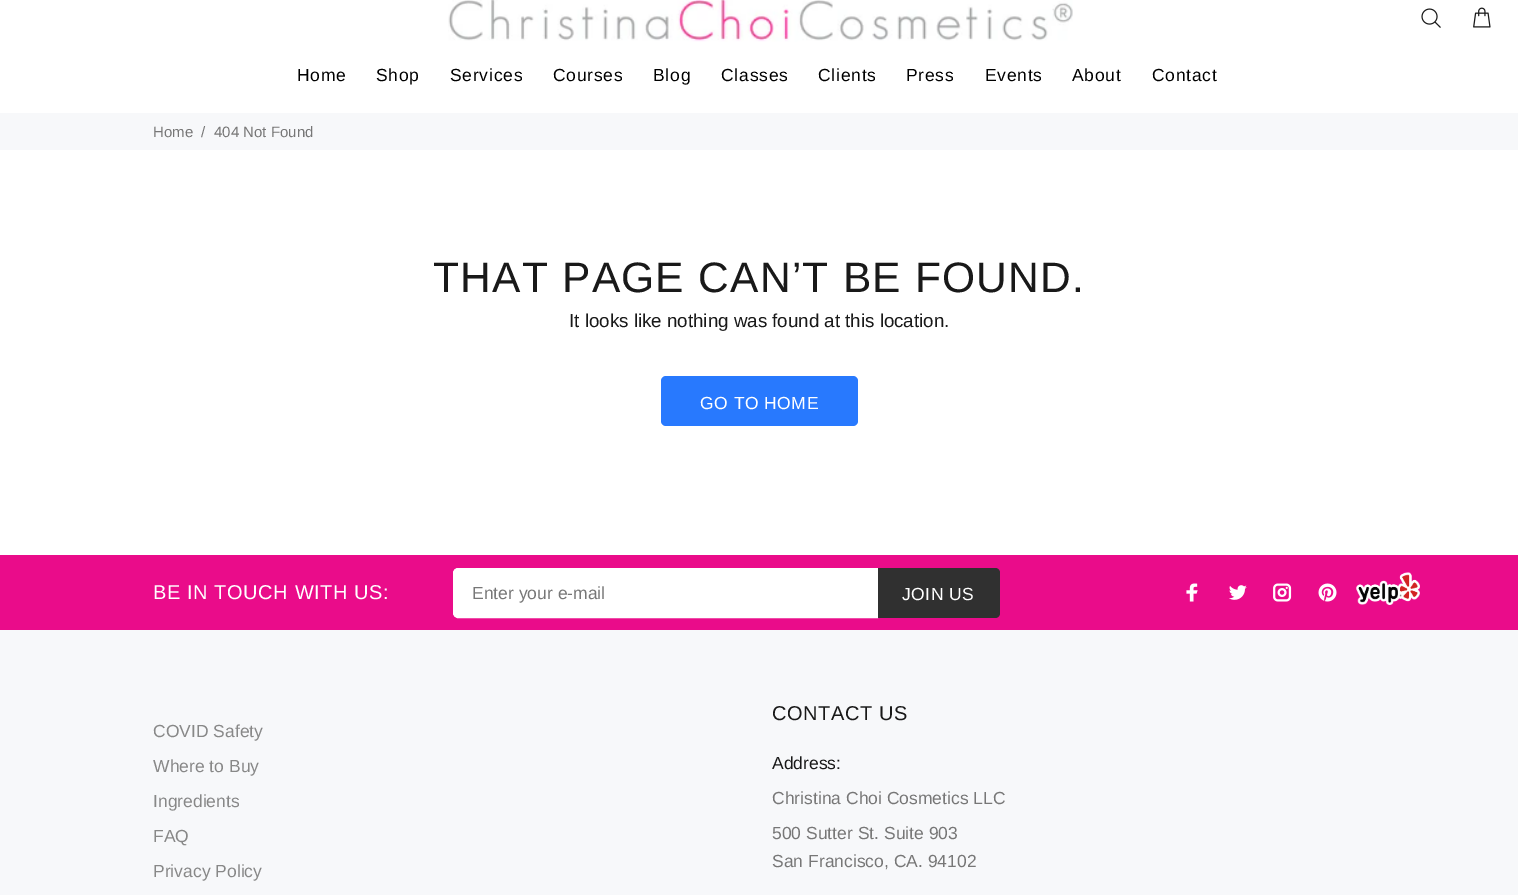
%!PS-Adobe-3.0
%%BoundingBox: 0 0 1518 895
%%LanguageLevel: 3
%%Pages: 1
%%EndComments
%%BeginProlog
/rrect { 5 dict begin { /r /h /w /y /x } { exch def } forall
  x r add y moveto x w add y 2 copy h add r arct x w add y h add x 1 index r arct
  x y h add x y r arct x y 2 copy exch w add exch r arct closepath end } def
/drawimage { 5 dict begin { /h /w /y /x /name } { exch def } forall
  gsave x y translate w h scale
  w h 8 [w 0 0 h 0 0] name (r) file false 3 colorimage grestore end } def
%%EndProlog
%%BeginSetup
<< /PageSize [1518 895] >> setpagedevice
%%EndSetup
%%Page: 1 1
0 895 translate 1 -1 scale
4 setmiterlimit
1 setgray
0 0 1518 895 rectfill
(images/1.raw) 448 0 625 42 drawimage
(images/2.raw) 1421 8 20 20 drawimage
(images/3.raw) 1473 7 18 21 drawimage
0.969 0.973 0.98 setrgbcolor
0 113 1518 37 rectfill
0.157 0.475 0.996 setrgbcolor
661 376 197 50 5 rrect fill
0.918 0.047 0.541 setrgbcolor
0 555 1518 75 rectfill
1 setgray
newpath 458 568.5 moveto 877.5 568.5 lineto 877.5 617.5 lineto 458 617.5 lineto 455.5 617.5 453.5 615.5 453.5 613 curveto 453.5 573 lineto 453.5 570.5 455.5 568.5 458 568.5 curveto closepath gsave fill grestore
stroke
0.188 setgray
newpath 878 568 moveto 995 568 lineto 998 568 1000 570 1000 573 curveto 1000 613 lineto 1000 616 998 618 995 618 curveto 878 618 lineto closepath fill
(images/4.raw) 1186 583 12 19 drawimage
(images/5.raw) 1229 585 18 15 drawimage
(images/6.raw) 1273 583 19 19 drawimage
(images/7.raw) 1318 583 19 19 drawimage
(images/8.raw) 1356 572 64 33 drawimage
0.969 0.973 0.98 setrgbcolor
0 630 1518 265 rectfill
/LiberationSans-Regular [17.5 0 0 -17.5 0 0] selectfont
0 setgray
297 81 moveto 0.75 0 (Home) ashow
376 81 moveto 0.75 0 (Shop) ashow
450 81 moveto 0.75 0 (Services) ashow
553 81 moveto 0.75 0 (Courses) ashow
653 81 moveto 0.75 0 (Blog) ashow
721 81 moveto 0.75 0 (Classes) ashow
818 81 moveto 0.75 0 (Clients) ashow
906 81 moveto 0.75 0 (Press) ashow
985 81 moveto 0.75 0 (Events) ashow
1072 81 moveto 0.75 0 (About) ashow
1152 81 moveto 0.75 0 (Contact) ashow
/LiberationSans-Regular [15 0 0 -15 0 0] selectfont
0.467 setgray
153 137 moveto (Home) show
201 137 moveto (/) show
214 137 moveto (404 Not Found) show
/LiberationSans-Regular [42.5 0 0 -42.5 0 0] selectfont
0.098 setgray
433 292 moveto 1.25 0 (THAT PAGE CAN’T BE FOUND.) ashow
/LiberationSans-Regular [18.75 0 0 -18.75 0 0] selectfont
569 327 moveto (It looks like nothing was found at this location.) show
/LiberationSans-Regular [17.5 0 0 -17.5 0 0] selectfont
1 setgray
700 409 moveto 0.5 0 (GO TO HOME) ashow
/LiberationSans-Regular [20 0 0 -20 0 0] selectfont
153 599 moveto 0.6 0 (BE IN TOUCH WITH US:) ashow
/LiberationSans-Regular [17.5 0 0 -17.5 0 0] selectfont
0.467 setgray
472 599 moveto (Enter your e-mail) show
1 setgray
902 600 moveto 0.5 0 (JOIN US) ashow
0.533 setgray
153 737 moveto (COVID Safety) show
153 772 moveto (Where to Buy) show
153 807 moveto (Ingredients) show
153 842 moveto (FAQ) show
153 877 moveto (Privacy Policy) show
/LiberationSans-Regular [20 0 0 -20 0 0] selectfont
0.098 setgray
772 720 moveto 0.6 0 (CONTACT US) ashow
/LiberationSans-Regular [17.5 0 0 -17.5 0 0] selectfont
772 769 moveto (Address:) show
0.467 setgray
772 804 moveto (Christina Choi Cosmetics LLC) show
772 839 moveto (500 Sutter St. Suite 903) show
772 867 moveto (San Francisco, CA. 94102) show
showpage
%%EOF
